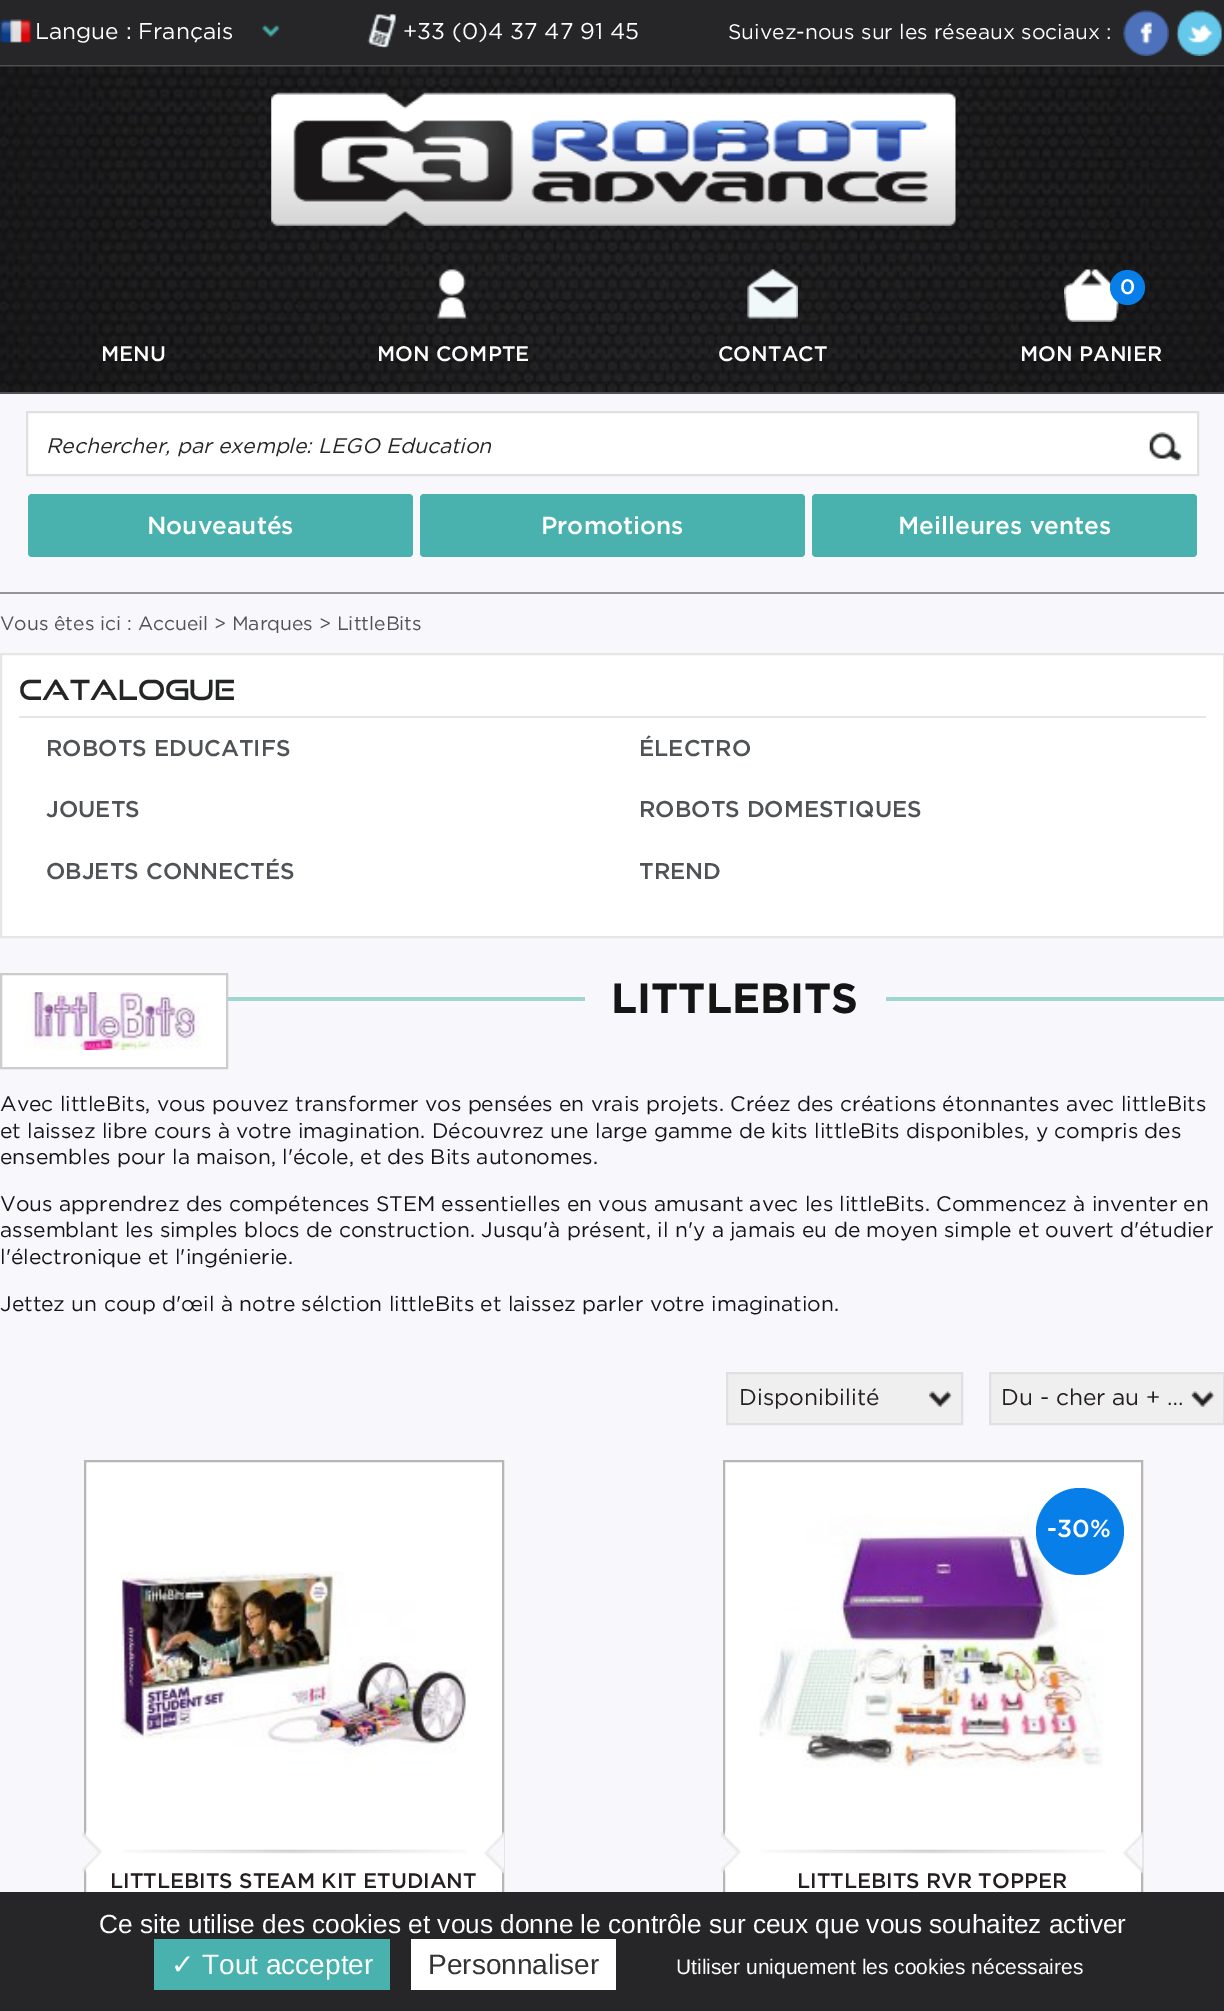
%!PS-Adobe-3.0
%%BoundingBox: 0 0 1224 2011
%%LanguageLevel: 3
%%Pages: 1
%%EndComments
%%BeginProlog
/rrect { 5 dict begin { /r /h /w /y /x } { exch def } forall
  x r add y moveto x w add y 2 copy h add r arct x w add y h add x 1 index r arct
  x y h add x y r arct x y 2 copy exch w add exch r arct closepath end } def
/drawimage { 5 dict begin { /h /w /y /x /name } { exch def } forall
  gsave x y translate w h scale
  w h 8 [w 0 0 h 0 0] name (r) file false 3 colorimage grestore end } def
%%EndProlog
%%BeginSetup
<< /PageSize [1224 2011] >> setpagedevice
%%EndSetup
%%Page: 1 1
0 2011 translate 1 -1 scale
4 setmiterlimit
0.973 0.969 0.988 setrgbcolor
0 0 1224 2011 rectfill
0.149 0.149 0.157 setrgbcolor
0 0 1224 65 rectfill
0.31 0.31 0.318 setrgbcolor
0 65 1224 2 rectfill
(images/1.raw) 262 24 18 13 drawimage
(images/2.raw) 0 19 32 24 drawimage
(images/3.raw) 367 14 29 34 drawimage
(images/4.raw) 1123 10 46 46 drawimage
(images/5.raw) 1176 10 46 46 drawimage
(images/6.raw) 0 66 1224 326 drawimage
0 392 1224 2 rectfill
(images/7.raw) 271 92 685 134 drawimage
(images/8.raw) 437 269 31 50 drawimage
(images/9.raw) 747 269 51 50 drawimage
(images/10.raw) 1064 269 55 53 drawimage
0.027 0.494 0.91 setrgbcolor
newpath 1127.5 287.5 17.5 0 360 arc closepath fill
1 setgray
newpath 27 412 moveto 1198 412 lineto 1198 475 lineto 27 475 lineto closepath gsave fill grestore
0.878 0.878 0.886 setrgbcolor
2 setlinewidth
stroke
(images/11.raw) 1149 432 33 29 drawimage
0.286 0.698 0.682 setrgbcolor
28 494 385 63 4 rrect fill
420 494 385 63 4 rrect fill
812 494 385 63 4 rrect fill
0.584 setgray
0 592 1224 2 rectfill
1 setgray
newpath 1 654 moveto 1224 654 lineto 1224 937 lineto 1 937 lineto closepath gsave fill grestore
0.902 setgray
stroke
19 716 1187 2 rectfill
1 setgray
newpath 1 974 moveto 227 974 lineto 227 1068 lineto 1 1068 lineto closepath gsave fill grestore
0.8 setgray
stroke
(images/12.raw) 25 992 176 58 drawimage
0.624 0.839 0.816 setrgbcolor
228 997 996 4 rectfill
0.973 0.969 0.988 setrgbcolor
585 997 301 4 rectfill
0.937 setgray
728 1374 233 49 rectfill
(images/13.raw) 929 1391 23 16 drawimage
0.878 0.878 0.886 setrgbcolor
727 1373 235 51 rectstroke
0.937 setgray
991 1374 232 49 rectfill
(images/14.raw) 1191 1391 24 16 drawimage
0.878 0.878 0.886 setrgbcolor
990 1373 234 51 rectstroke
1 setgray
86 1462 416 430 rectfill
0.729 0.71 0.71 setrgbcolor
85 1461 418 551 rectstroke
(images/15.raw) 120 1571 346 197 drawimage
(images/16.raw) 82 1831 20 42 drawimage
(images/17.raw) 484 1832 20 42 drawimage
(images/18.raw) 123 1849 344 5 drawimage
1 setgray
725 1462 416 430 rectfill
0.729 0.71 0.71 setrgbcolor
724 1461 418 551 rectstroke
(images/19.raw) 759 1515 344 254 drawimage
0.027 0.494 0.91 setrgbcolor
1036 1488 88 87 43.5 rrect fill
(images/20.raw) 721 1831 20 42 drawimage
(images/21.raw) 1123 1832 20 42 drawimage
(images/22.raw) 761 1849 345 5 drawimage
0.149 0.149 0.157 setrgbcolor
0 1892 1224 119 rectfill
0.286 0.698 0.682 setrgbcolor
154 1939 236 51 rectfill
1 setgray
411 1939 205 51 rectfill
/Gotham-Regular [22.75 0 0 -22.75 0 0] selectfont
35 39 moveto (Langue : Français) show
403 39 moveto (+33 \(0\)4 37 47 91 45) show
/Gotham-Regular [21 0 0 -21 0 0] selectfont
728 39 moveto (Suivez-nous sur les réseaux sociaux :) show
/Gotham-Medium [21 0 0 -21 0 0] selectfont
101 361 moveto (MENU) show
377 361 moveto (MON COMPTE) show
718 361 moveto (CONTACT) show
1120 294 moveto (0) show
1020 361 moveto (MON PANIER) show
/Gotham-Italic [21 0 0 -21 0 0] selectfont
0.141 0.149 0.149 setrgbcolor
46 453 moveto (Rechercher, par exemple: LEGO Education) show
/Gotham-Medium [24.5 0 0 -24.5 0 0] selectfont
1 setgray
147 534 moveto (Nouveautés) show
541 534 moveto (Promotions) show
898 534 moveto (Meilleures ventes) show
/Gotham-Regular [19.25 0 0 -19.25 0 0] selectfont
0.31 0.325 0.337 setrgbcolor
0 630 moveto (Vous êtes ici : Accueil > Marques > LittleBits) show
/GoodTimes-Regular [28 0 0 -28 0 0] selectfont
0.141 0.149 0.149 setrgbcolor
19 700 moveto (CATALOGUE) show
/Gotham-Medium [22.75 0 0 -22.75 0 0] selectfont
0.31 0.325 0.337 setrgbcolor
46 756 moveto (ROBOTS EDUCATIFS) show
639 756 moveto (ÉLECTRO) show
46 817 moveto (JOUETS) show
639 817 moveto (ROBOTS DOMESTIQUES) show
46 879 moveto (OBJETS CONNECTÉS) show
639 879 moveto (TREND) show
/Gotham-Bold [42 0 0 -42 0 0] selectfont
0.082 0.082 0.086 setrgbcolor
611 1013 moveto (LITTLEBITS) show
/Gotham-Regular [21 0 0 -21 0 0] selectfont
0 1111 moveto (Avec littleBits, vous pouvez transformer vos pensées en vrais projets. Créez des créations étonnantes avec littleBits) show
0 1138 moveto (et laissez libre cours à votre imagination. Découvrez une large gamme de kits littleBits disponibles, y compris des) show
0 1164 moveto (ensembles pour la maison, l'école, et des Bits autonomes.) show
0 1211 moveto (Vous apprendrez des compétences STEM essentielles en vous amusant avec les littleBits. Commencez à inventer en) show
0 1237 moveto (assemblant les simples blocs de construction. Jusqu'à présent, il n'y a jamais eu de moyen simple et ouvert d'étudier) show
0 1264 moveto (l'électronique et l'ingénierie.) show
0 1311 moveto (Jettez un coup d'œil à notre sélction littleBits et laissez parler votre imagination.) show
/Gotham-Regular [22.75 0 0 -22.75 0 0] selectfont
0.137 0.122 0.125 setrgbcolor
739 1405 moveto (Disponibilité) show
1001 1405 moveto (Du - cher au + …) show
/Gotham-Medium [21 0 0 -21 0 0] selectfont
110 1888 moveto (LITTLEBITS STEAM KIT ETUDIANT) show
/Gotham-Medium [24.5 0 0 -24.5 0 0] selectfont
1 setgray
1047 1537 moveto (-30%) show
/Gotham-Medium [21 0 0 -21 0 0] selectfont
0.137 0.122 0.125 setrgbcolor
797 1888 moveto (LITTLEBITS RVR TOPPER) show
/LiberationSans-Regular [26.25 0 0 -26.25 0 0] selectfont
1 setgray
99 1933 moveto (Ce site utilise des cookies et vous donne le contrôle sur ceux que vous souhaitez activer) show
/DejaVuSans-Regular [28 0 0 -28 0 0] selectfont
171 1974 moveto (✓) show
/LiberationSans-Regular [28 0 0 -28 0 0] selectfont
202 1974 moveto (Tout accepter) show
0.2 setgray
428 1974 moveto (Personnaliser) show
/LiberationSans-Regular [21 0 0 -21 0 0] selectfont
1 setgray
676 1974 moveto (Utiliser uniquement les cookies nécessaires) show
showpage
%%EOF
